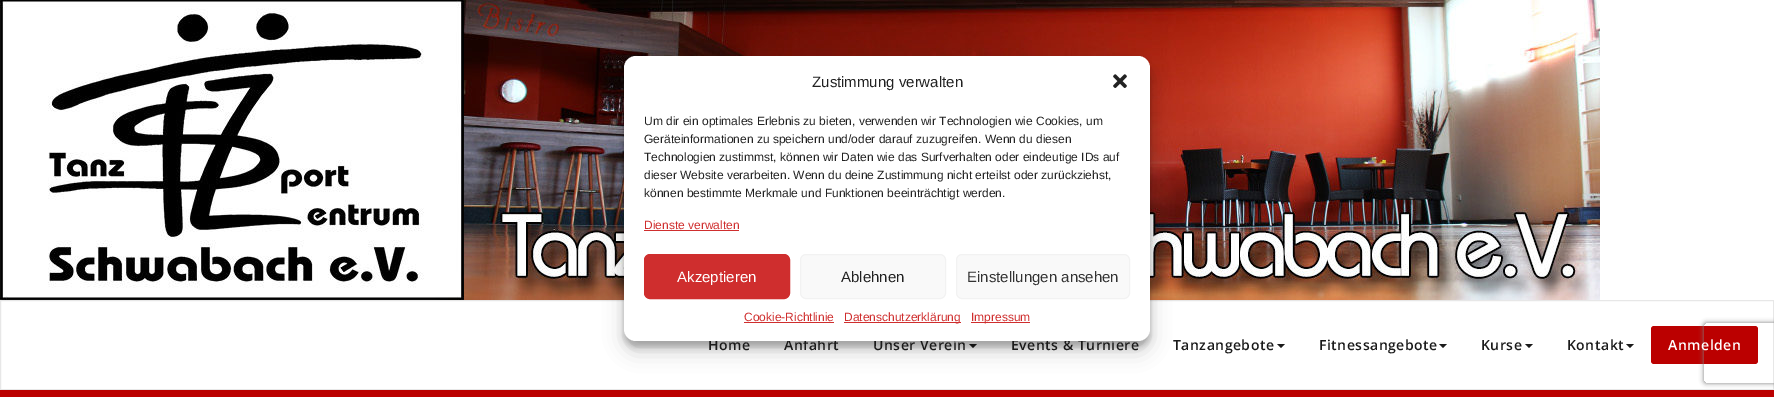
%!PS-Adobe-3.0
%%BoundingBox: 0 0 1774 397
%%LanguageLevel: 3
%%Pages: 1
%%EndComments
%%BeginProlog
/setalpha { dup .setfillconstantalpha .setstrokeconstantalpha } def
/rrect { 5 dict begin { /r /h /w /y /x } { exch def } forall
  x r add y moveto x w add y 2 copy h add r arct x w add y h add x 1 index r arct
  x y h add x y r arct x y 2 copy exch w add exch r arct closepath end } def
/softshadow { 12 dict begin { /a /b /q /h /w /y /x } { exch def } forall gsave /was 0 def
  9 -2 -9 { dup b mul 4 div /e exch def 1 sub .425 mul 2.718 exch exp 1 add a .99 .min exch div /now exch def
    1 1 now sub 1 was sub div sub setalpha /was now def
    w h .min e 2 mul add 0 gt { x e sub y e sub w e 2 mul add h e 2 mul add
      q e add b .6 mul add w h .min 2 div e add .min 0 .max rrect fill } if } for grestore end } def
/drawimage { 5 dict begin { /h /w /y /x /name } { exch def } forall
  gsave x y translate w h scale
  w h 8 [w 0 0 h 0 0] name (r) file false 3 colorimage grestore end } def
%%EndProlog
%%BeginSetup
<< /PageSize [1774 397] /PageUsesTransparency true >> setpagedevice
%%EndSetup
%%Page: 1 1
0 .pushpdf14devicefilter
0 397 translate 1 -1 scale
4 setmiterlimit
1 setgray
0 0 1774 397 rectfill
(images/1.raw) 0 0 1600 300 drawimage
0.906 setgray
0.5 300.5 1773 89 rectstroke
0.106 setgray
newpath 969 344 moveto 977 344 lineto 973 348 lineto closepath fill
0 setgray
624 62 526 285 12 3 0.23 softshadow
624 66 526 285 12 10 0.19 softshadow
0.733 0 0 setrgbcolor
1651 326 107 38 3 rrect fill
0 390 1774 7 rectfill
gsave
newpath 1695 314 moveto 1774 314 lineto 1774 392 lineto 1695 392 lineto closepath 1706 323 moveto 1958 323 lineto 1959 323 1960 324 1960 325 curveto 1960 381 lineto 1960 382 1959 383 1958 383 curveto 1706 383 lineto 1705 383 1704 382 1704 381 curveto 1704 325 lineto 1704 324 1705 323 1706 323 curveto closepath eoclip newpath
0.502 setgray
1704 323 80 60 2 2.5 1 softshadow
grestore
0.106 setgray
newpath 1277 344 moveto 1285 344 lineto 1281 348 lineto closepath fill
newpath 1439 344 moveto 1447 344 lineto 1443 348 lineto closepath fill
newpath 1525 344 moveto 1533 344 lineto 1529 348 lineto closepath fill
newpath 1626 344 moveto 1634 344 lineto 1630 348 lineto closepath fill
/OpenSans-SemiBold [14 0 0 -14 0 0] selectfont
708 350 moveto 0.5 0 (Home) ashow
784 350 moveto 0.5 0 (Anfahrt) ashow
873 350 moveto 0.5 0 (Unser Verein) ashow
1011 350 moveto 0.5 0 (Events & Turniere) ashow
1 setgray
624 56 526 285 12 rrect fill
/LiberationSans-Regular [12 0 0 -12 0 0] selectfont
0.133 setgray
644 197 moveto (können bestimmte Merkmale und Funktionen beeinträchtigt werden.) show
644 179 moveto (dieser Website verarbeiten. Wenn du deine Zustimmung nicht erteilst oder zurückziehst,) show
644 161 moveto (Technologien zustimmst, können wir Daten wie das Surfverhalten oder eindeutige IDs auf) show
644 143 moveto (Geräteinformationen zu speichern und/oder darauf zuzugreifen. Wenn du diesen) show
644 125 moveto (Um dir ein optimales Erlebnis zu bieten, verwenden wir Technologien wie Cookies, um) show
(images/2.raw) 1113 74 14 14 drawimage
0.812 0.18 0.18 setrgbcolor
971 322 59 1 rectfill
971 321 moveto (Impressum) show
844 322 117 1 rectfill
844 321 moveto (Datenschutzerklärung) show
744 321 moveto (Cookie-Richtlinie) show
744 322 90 1 rectfill
0.976 setgray
956.5 254.5 173 44 5.5 rrect gsave fill grestore
0.949 setgray
stroke
/LiberationSans-Regular [15 0 0 -15 0 0] selectfont
0.2 setgray
967 282 moveto (Einstellungen ansehen) show
0.976 setgray
800.5 254.5 145 44 5.5 rrect gsave fill grestore
0.949 setgray
stroke
0.133 setgray
841 282 moveto (Ablehnen) show
0.812 0.18 0.18 setrgbcolor
644.5 254.5 145 44 5.5 rrect gsave fill grestore
stroke
1 setgray
677 282 moveto (Akzeptieren) show
/LiberationSans-Regular [12 0 0 -12 0 0] selectfont
0.812 0.18 0.18 setrgbcolor
644 229 moveto (Dienste verwalten) show
644 230 95 1 rectfill
/LiberationSans-Regular [15 0 0 -15 0 0] selectfont
0.133 setgray
812 87 moveto (Zustimmung verwalten) show
/OpenSans-SemiBold [14 0 0 -14 0 0] selectfont
0.106 setgray
1173 350 moveto 0.5 0 (Tanzangebote) ashow
1319 350 moveto 0.5 0 (Fitnessangebote) ashow
1481 350 moveto 0.5 0 (Kurse) ashow
1567 350 moveto 0.5 0 (Kontakt) ashow
1 setgray
1668 350 moveto 0.5 0 (Anmelden) ashow
.poppdf14devicefilter showpage
%%EOF
